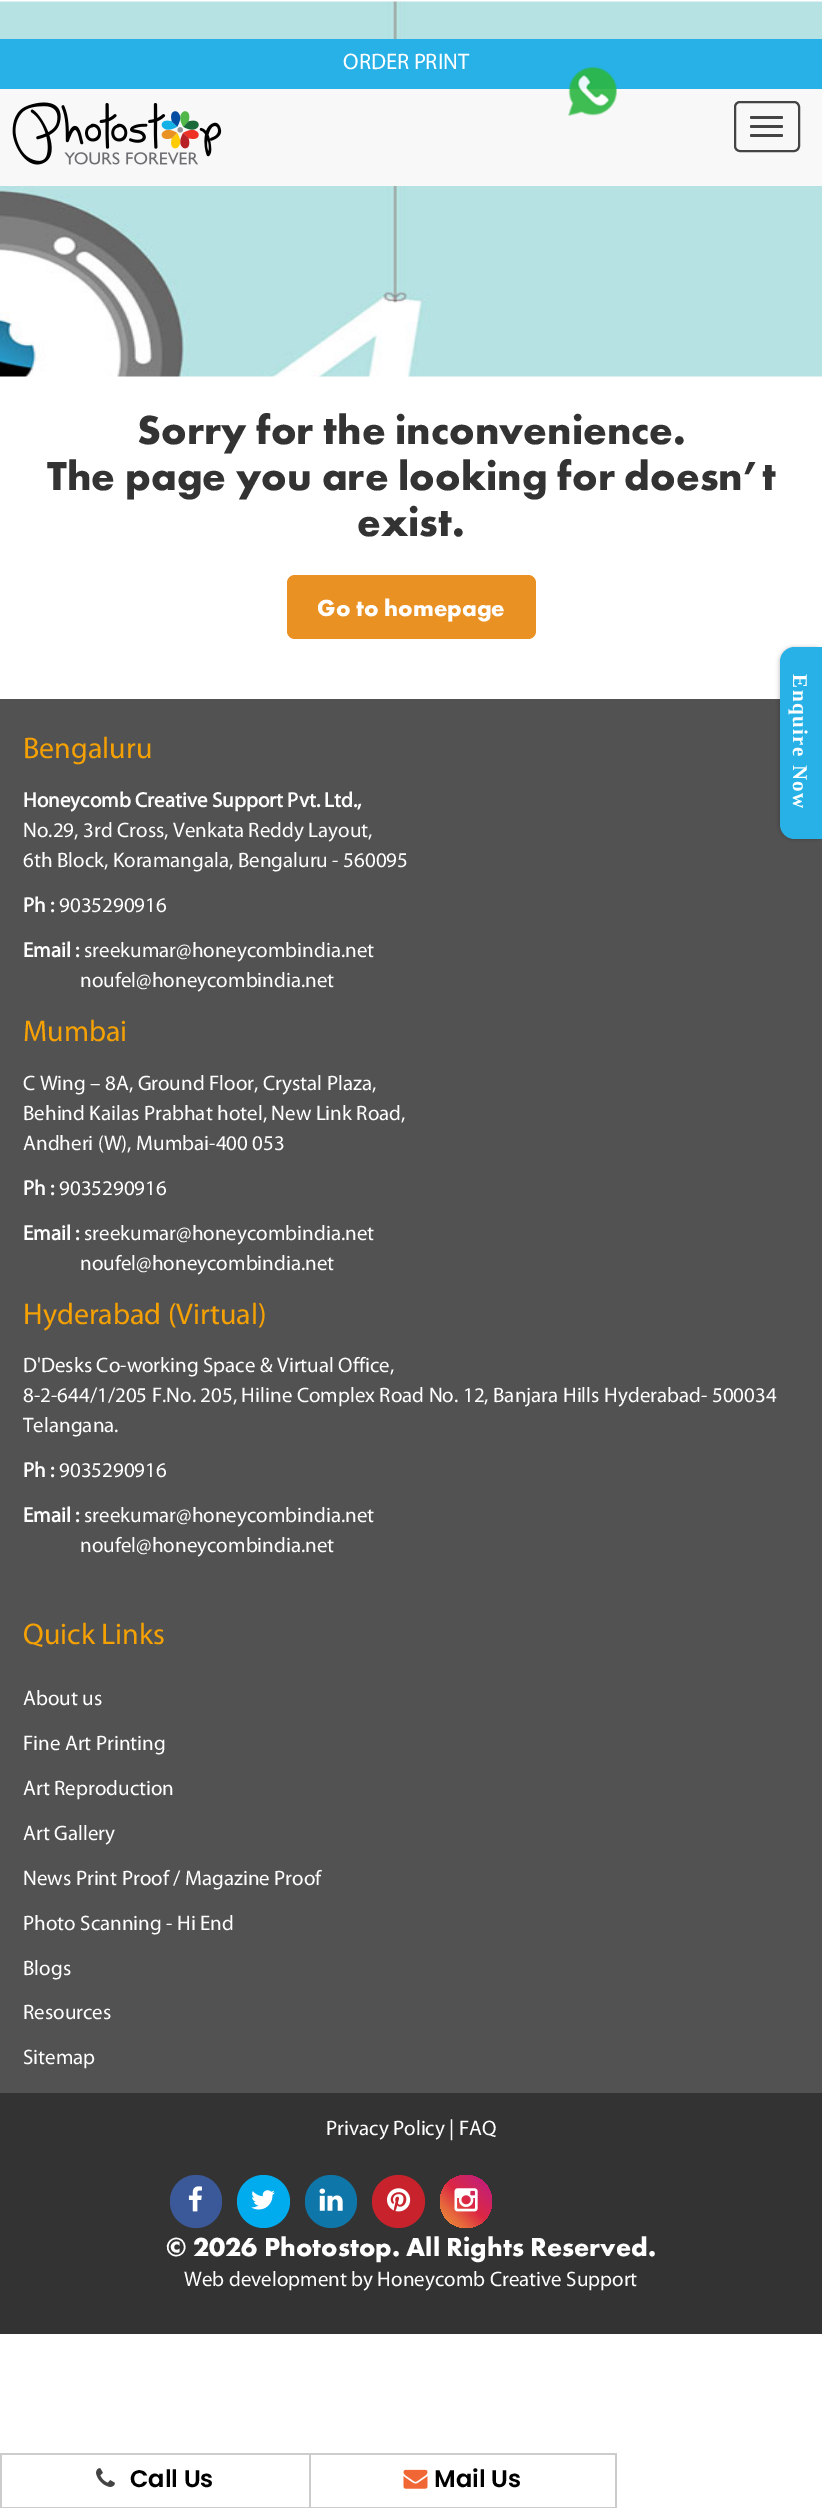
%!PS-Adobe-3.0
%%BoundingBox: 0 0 822 2508
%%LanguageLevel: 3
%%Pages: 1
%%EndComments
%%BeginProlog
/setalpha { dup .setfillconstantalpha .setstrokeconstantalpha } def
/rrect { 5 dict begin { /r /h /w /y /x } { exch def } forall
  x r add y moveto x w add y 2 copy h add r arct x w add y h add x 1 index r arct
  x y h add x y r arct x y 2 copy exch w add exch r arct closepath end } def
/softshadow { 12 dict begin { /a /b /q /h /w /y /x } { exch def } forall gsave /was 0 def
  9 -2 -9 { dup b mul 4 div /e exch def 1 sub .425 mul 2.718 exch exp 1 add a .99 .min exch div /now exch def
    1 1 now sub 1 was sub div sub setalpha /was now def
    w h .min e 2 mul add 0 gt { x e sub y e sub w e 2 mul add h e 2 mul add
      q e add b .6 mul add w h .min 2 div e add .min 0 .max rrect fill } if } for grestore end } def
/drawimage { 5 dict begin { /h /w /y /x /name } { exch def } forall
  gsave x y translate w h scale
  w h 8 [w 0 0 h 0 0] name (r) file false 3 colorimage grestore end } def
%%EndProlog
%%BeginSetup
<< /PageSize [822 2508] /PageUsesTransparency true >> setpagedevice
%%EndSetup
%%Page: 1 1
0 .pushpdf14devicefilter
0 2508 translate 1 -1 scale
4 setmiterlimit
1 setgray
0 0 822 2508 rectfill
(images/1.raw) 0 1 822 376 drawimage
0.973 setgray
0 89 822 97 rectfill
0.153 0.694 0.906 setrgbcolor
0 39 822 50 rectfill
(images/2.raw) 12 102 210 63 drawimage
0.267 setgray
2 setlinewidth
735 102 64 49 5 rrect stroke
750 116 33 3 1.5 rrect fill
750 125 33 3 1.5 rrect fill
750 134 33 3 1.5 rrect fill
(images/3.raw) 568 67 49 49 drawimage
0.918 0.569 0.141 setrgbcolor
287 575 249 64 8 rrect fill
0.322 setgray
0 699 822 1394 rectfill
0.2 setgray
0 2093 822 241 rectfill
0.231 0.349 0.596 setrgbcolor
170 2175 52 53 26 rrect fill
(images/4.raw) 188 2186 14 26 drawimage
0 0.675 0.933 setrgbcolor
newpath 263.5 2201.5 26.5 0 360 arc closepath fill
(images/5.raw) 251 2190 24 20 drawimage
0.055 0.463 0.659 setrgbcolor
305 2175 52 53 26 rrect fill
(images/6.raw) 319 2188 24 23 drawimage
0.784 0.137 0.173 setrgbcolor
newpath 398.5 2201.5 26.5 0 360 arc closepath fill
(images/7.raw) 387 2188 24 24 drawimage
gsave 440 2175 52 53 26 rrect clip newpath
<< /ShadingType 2 /ColorSpace /DeviceRGB /Coords [440 2228 492 2175] /Extend [true true] /Function << /FunctionType 3 /Domain [0 1] /Functions [<< /FunctionType 2 /Domain [0 1] /C0 [0.941 0.58 0.2] /C1 [0.902 0.408 0.235] /N 1 >> << /FunctionType 2 /Domain [0 1] /C0 [0.902 0.408 0.235] /C1 [0.863 0.153 0.263] /N 1 >> << /FunctionType 2 /Domain [0 1] /C0 [0.863 0.153 0.263] /C1 [0.8 0.137 0.4] /N 1 >> << /FunctionType 2 /Domain [0 1] /C0 [0.8 0.137 0.4] /C1 [0.737 0.094 0.533] /N 1 >>] /Bounds [0.25 0.5 0.75] /Encode [0 1 0 1 0 1 0 1] >> >> shfill grestore
(images/8.raw) 454 2188 24 24 drawimage
0 setgray
779 647 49 192 15 2 0.2 softshadow
0.153 0.694 0.906 setrgbcolor
newpath 795 647 moveto 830 647 lineto 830 839 lineto 795 839 lineto 786.5 839 780 832.5 780 824 curveto 780 662 lineto 780 653.5 786.5 647 795 647 curveto closepath fill
0.8 setgray
0 2453 617 2 rectfill
615 2453 2 55 rectfill
0 2507 617 1 rectfill
0 2453 2 55 rectfill
(images/9.raw) 96 2468 19 19 drawimage
309 2453 2 55 rectfill
(images/10.raw) 403 2469 25 20 drawimage
/Myriad-Regular [22.5 0 0 -22.5 0 0] selectfont
1 setgray
343 69 moveto (ORDER PRINT) show
/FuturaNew-Bold [42 0 0 -42 0 0] selectfont
0.2 setgray
137 444 moveto (Sorry for the inconvenience.) show
47 490 moveto (The page you are looking for doesn’t) show
357 536 moveto (exist.) show
/FuturaNew-Bold [24 0 0 -24 0 0] selectfont
1 setgray
317 616 moveto (Go to homepage) show
/Myriad-Regular [30 0 0 -30 0 0] selectfont
0.961 0.631 0.016 setrgbcolor
23 758 moveto (Bengaluru) show
/Myriad-Bold [21 0 0 -21 0 0] selectfont
1 setgray
23 807 moveto (Honeycomb Creative Support Pvt. Ltd.,) show
/Myriad-Regular [21 0 0 -21 0 0] selectfont
23 837 moveto (No.29, 3rd Cross, Venkata Reddy Layout,) show
23 867 moveto (6th Block, Koramangala, Bengaluru - 560095) show
/Myriad-Bold [21 0 0 -21 0 0] selectfont
23 912 moveto (Ph :) show
/Myriad-Regular [21 0 0 -21 0 0] selectfont
59 912 moveto (9035290916) show
/Myriad-Bold [21 0 0 -21 0 0] selectfont
23 957 moveto (Email :) show
/Myriad-Regular [21 0 0 -21 0 0] selectfont
84 957 moveto (sreekumar@honeycombindia.net) show
80 987 moveto (noufel@honeycombindia.net) show
/Myriad-Regular [30 0 0 -30 0 0] selectfont
0.961 0.631 0.016 setrgbcolor
23 1041 moveto (Mumbai) show
/Myriad-Regular [21 0 0 -21 0 0] selectfont
1 setgray
23 1090 moveto (C Wing – 8A, Ground Floor, Crystal Plaza,) show
23 1120 moveto (Behind Kailas Prabhat hotel, New Link Road,) show
23 1150 moveto (Andheri \(W\), Mumbai-400 053) show
/Myriad-Bold [21 0 0 -21 0 0] selectfont
23 1195 moveto (Ph :) show
/Myriad-Regular [21 0 0 -21 0 0] selectfont
59 1195 moveto (9035290916) show
/Myriad-Bold [21 0 0 -21 0 0] selectfont
23 1240 moveto (Email :) show
/Myriad-Regular [21 0 0 -21 0 0] selectfont
84 1240 moveto (sreekumar@honeycombindia.net) show
80 1270 moveto (noufel@honeycombindia.net) show
/Myriad-Regular [30 0 0 -30 0 0] selectfont
0.961 0.631 0.016 setrgbcolor
23 1324 moveto (Hyderabad \(Virtual\)) show
/Myriad-Regular [21 0 0 -21 0 0] selectfont
1 setgray
23 1372 moveto (D'Desks Co-working Space & Virtual Office,) show
23 1402 moveto (8-2-644/1/205 F.No. 205, Hiline Complex Road No. 12, Banjara Hills Hyderabad- 500034) show
23 1432 moveto (Telangana.) show
/Myriad-Bold [21 0 0 -21 0 0] selectfont
23 1477 moveto (Ph :) show
/Myriad-Regular [21 0 0 -21 0 0] selectfont
59 1477 moveto (9035290916) show
/Myriad-Bold [21 0 0 -21 0 0] selectfont
23 1522 moveto (Email :) show
/Myriad-Regular [21 0 0 -21 0 0] selectfont
84 1522 moveto (sreekumar@honeycombindia.net) show
80 1552 moveto (noufel@honeycombindia.net) show
/Myriad-Regular [30 0 0 -30 0 0] selectfont
0.961 0.631 0.016 setrgbcolor
23 1644 moveto (Quick Links) show
/Myriad-Regular [21 0 0 -21 0 0] selectfont
1 setgray
23 1705 moveto (About us) show
23 1750 moveto (Fine Art Printing) show
23 1795 moveto (Art Reproduction) show
23 1840 moveto (Art Gallery) show
23 1885 moveto (News Print Proof / Magazine Proof) show
23 1930 moveto (Photo Scanning - Hi End) show
23 1975 moveto (Blogs) show
23 2019 moveto (Resources) show
23 2064 moveto (Sitemap) show
326 2135 moveto (Privacy Policy | FAQ) show
/FuturaNew-Bold [27 0 0 -27 0 0] selectfont
166 2256 moveto (© 2026 Photostop. All Rights Reserved.) show
/Myriad-Regular [21 0 0 -21 0 0] selectfont
184 2286 moveto (Web development by Honeycomb Creative Support) show
/LiberationSerif-Bold [21 0 0 -21 0 0] selectfont
gsave 793 674 translate 90 rotate 0 0 moveto 1.5 0 (Enquire Now) ashow grestore
/Poppins-SemiBold [24 0 0 -24 0 0] selectfont
0 setgray
130 2487 moveto (Call Us) show
434 2487 moveto (Mail Us) show
.poppdf14devicefilter showpage
%%EOF
